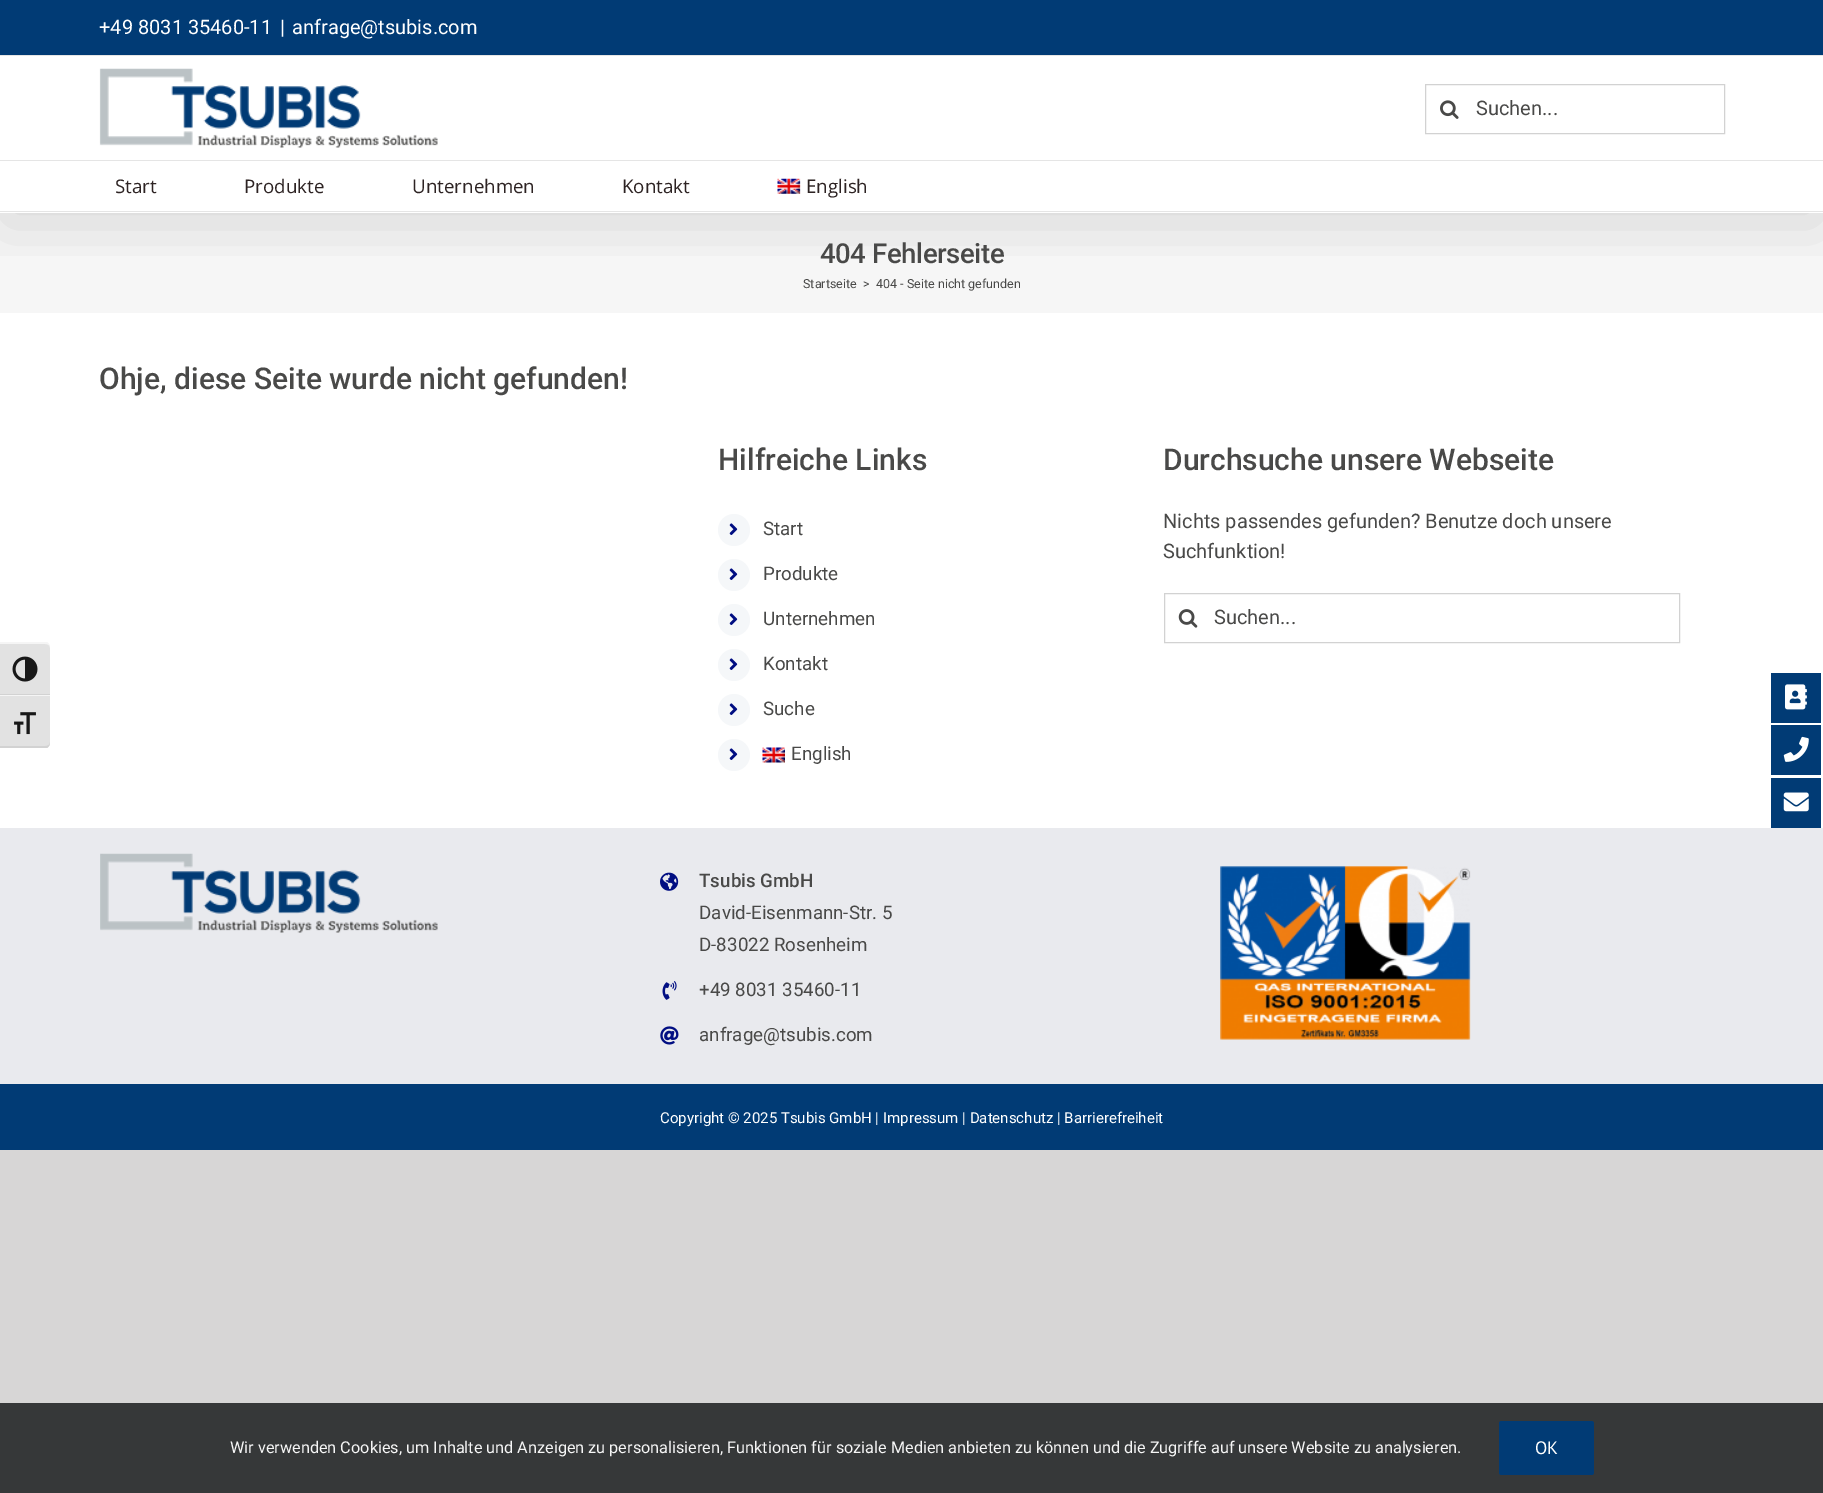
%!PS-Adobe-3.0
%%BoundingBox: 0 0 1823 1493
%%LanguageLevel: 3
%%Pages: 1
%%EndComments
%%BeginProlog
/setalpha { dup .setfillconstantalpha .setstrokeconstantalpha } def
/rrect { 5 dict begin { /r /h /w /y /x } { exch def } forall
  x r add y moveto x w add y 2 copy h add r arct x w add y h add x 1 index r arct
  x y h add x y r arct x y 2 copy exch w add exch r arct closepath end } def
/softshadow { 12 dict begin { /a /b /q /h /w /y /x } { exch def } forall gsave /was 0 def
  9 -2 -9 { dup b mul 4 div /e exch def 1 sub .425 mul 2.718 exch exp 1 add a .99 .min exch div /now exch def
    1 1 now sub 1 was sub div sub setalpha /was now def
    w h .min e 2 mul add 0 gt { x e sub y e sub w e 2 mul add h e 2 mul add
      q e add b .6 mul add w h .min 2 div e add .min 0 .max rrect fill } if } for grestore end } def
/drawimage { 5 dict begin { /h /w /y /x /name } { exch def } forall
  gsave x y translate w h scale
  w h 8 [w 0 0 h 0 0] name (r) file false 3 colorimage grestore end } def
%%EndProlog
%%BeginSetup
<< /PageSize [1823 1493] /PageUsesTransparency true >> setpagedevice
%%EndSetup
%%Page: 1 1
0 .pushpdf14devicefilter
0 1493 translate 1 -1 scale
4 setmiterlimit
0.843 0.839 0.839 setrgbcolor
0 0 1823 1493 rectfill
1 setgray
0 56 1823 772 rectfill
0.886 setgray
newpath 0 643 moveto 45 643 lineto 48 643 50 645 50 648 curveto 50 695 lineto 0 695 lineto closepath fill
0.961 setgray
newpath 0 644 moveto 45 644 lineto 48 644 50 645 50 648 curveto 50 646 49 643 47 642 curveto 0 642 lineto closepath fill
0.824 setgray
0 694 50 1 rectfill
(images/1.raw) 12 656 26 26 drawimage
0.886 setgray
newpath 0 695 moveto 50 695 lineto 50 743 lineto 50 746 48 748 45 748 curveto 0 748 lineto closepath fill
0.961 setgray
0 695 50 1 rectfill
0.824 setgray
newpath 47 748 moveto 49 747 50 744 50 742 curveto 50 745 48 746 45 746 curveto 0 746 lineto 0 748 lineto closepath fill
(images/2.raw) 14 712 22 23 drawimage
0.965 setgray
0 213 1823 100 rectfill
gsave
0 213 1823 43 rectclip
0 setgray
3 15 1818 208 0 31 0.14 softshadow
grestore
0.004 0.231 0.459 setrgbcolor
0 0 1823 55 rectfill
0.898 setgray
0 55 1823 1 rectfill
0 160 1823 1 rectfill
(images/3.raw) 99 68 339 80 drawimage
0.824 setgray
1425.5 84.5 299 49 rectstroke
(images/4.raw) 1440 100 19 19 drawimage
1 setgray
0 212 1823 1 rectfill
0.898 setgray
0 211 1823 1 rectfill
(images/5.raw) 777 178 24 16 drawimage
0.961 0.969 0.976 setrgbcolor
newpath 734 530 16 0 360 arc closepath fill
(images/6.raw) 729 523 9 12 drawimage
newpath 734 575 16 0 360 arc closepath fill
(images/6.raw) 729 568 9 12 drawimage
newpath 734 620 16 0 360 arc closepath fill
(images/6.raw) 729 613 9 12 drawimage
newpath 734 665 16 0 360 arc closepath fill
(images/6.raw) 729 658 9 12 drawimage
newpath 734 710 16 0 360 arc closepath fill
(images/6.raw) 729 703 9 12 drawimage
newpath 734 755 16 0 360 arc closepath fill
(images/6.raw) 729 748 9 12 drawimage
(images/7.raw) 762 747 23 16 drawimage
0.824 setgray
1164.5 593.5 515 49 rectstroke
(images/8.raw) 1178 609 20 19 drawimage
0.914 0.918 0.933 setrgbcolor
0 828 1823 256 rectfill
(images/9.raw) 100 853 338 80 drawimage
(images/10.raw) 660 872 19 19 drawimage
(images/11.raw) 662 981 15 19 drawimage
(images/12.raw) 660 1026 19 19 drawimage
(images/13.raw) 1220 866 251 174 drawimage
0.004 0.231 0.459 setrgbcolor
0 1084 1823 66 rectfill
1771 673 50 50 rectfill
(images/14.raw) 1785 684 22 26 drawimage
1771 725 50 50 rectfill
(images/15.raw) 1783 736 26 26 drawimage
1771 778 50 50 rectfill
(images/16.raw) 1783 792 26 20 drawimage
0.212 0.22 0.224 setrgbcolor
0 1403 1823 90 rectfill
0.004 0.231 0.459 setrgbcolor
1499 1421 95 54 2.5 rrect fill
/Roboto-Regular [20 0 0 -20 0 0] selectfont
1 setgray
99 34 moveto (+49 8031 35460-11) show
280 34 moveto (|) show
292 34 moveto (anfrage@tsubis.com) show
0.286 0.286 0.282 setrgbcolor
1476 115 moveto (Suchen...) show
/OpenSans-Regular [18.75 0 0 -18.75 0 0] selectfont
0.176 0.137 0.137 setrgbcolor
115 193 moveto (Start) show
244 193 moveto (Produkte) show
412 193 moveto (Unternehmen) show
622 193 moveto (Kontakt) show
806 193 moveto (English) show
/Roboto-Medium [27.5 0 0 -27.5 0 0] selectfont
0.286 0.286 0.282 setrgbcolor
820 263 moveto -0.4 0 (404 Fehlerseite) ashow
/Roboto-Regular [12.5 0 0 -12.5 0 0] selectfont
803 288 moveto (Startseite) show
863 288 moveto (>) show
876 288 moveto (404 - Seite nicht gefunden) show
/Roboto-Medium [30 0 0 -30 0 0] selectfont
99 389 moveto (Ohje, diese Seite wurde nicht gefunden!) show
718 470 moveto (Hilfreiche Links) show
/Roboto-Regular [18.75 0 0 -18.75 0 0] selectfont
763 535 moveto (Start) show
763 580 moveto (Produkte) show
763 625 moveto (Unternehmen) show
763 670 moveto (Kontakt) show
763 715 moveto (Suche) show
791 760 moveto (English) show
/Roboto-Medium [30 0 0 -30 0 0] selectfont
1163 470 moveto (Durchsuche unsere Webseite) show
/Roboto-Regular [20 0 0 -20 0 0] selectfont
1163 528 moveto (Nichts passendes gefunden? Benutze doch unsere) show
1163 558 moveto (Suchfunktion!) show
1214 624 moveto (Suchen...) show
/Roboto-Medium [18.75 0 0 -18.75 0 0] selectfont
699 887 moveto (Tsubis GmbH) show
/Roboto-Regular [18.75 0 0 -18.75 0 0] selectfont
699 919 moveto (David-Eisenmann-Str. 5) show
699 951 moveto (D-83022 Rosenheim) show
699 996 moveto (+49 8031 35460-11) show
699 1041 moveto (anfrage@tsubis.com) show
/Roboto-Regular [15 0 0 -15 0 0] selectfont
1 setgray
660 1123 moveto (Copyright © 2025 Tsubis GmbH | Impressum | Datenschutz | Barrierefreiheit) show
/Roboto-Regular [16.25 0 0 -16.25 0 0] selectfont
0.965 setgray
230 1453 moveto (Wir verwenden Cookies, um Inhalte und Anzeigen zu personalisieren, Funktionen für soziale Medien anbieten zu können und die Zugriffe auf unsere Website zu analysieren.) show
/PTSans-Regular [18 0 0 -18 0 0] selectfont
1 setgray
1535 1454 moveto (OK) show
.poppdf14devicefilter showpage
%%EOF
